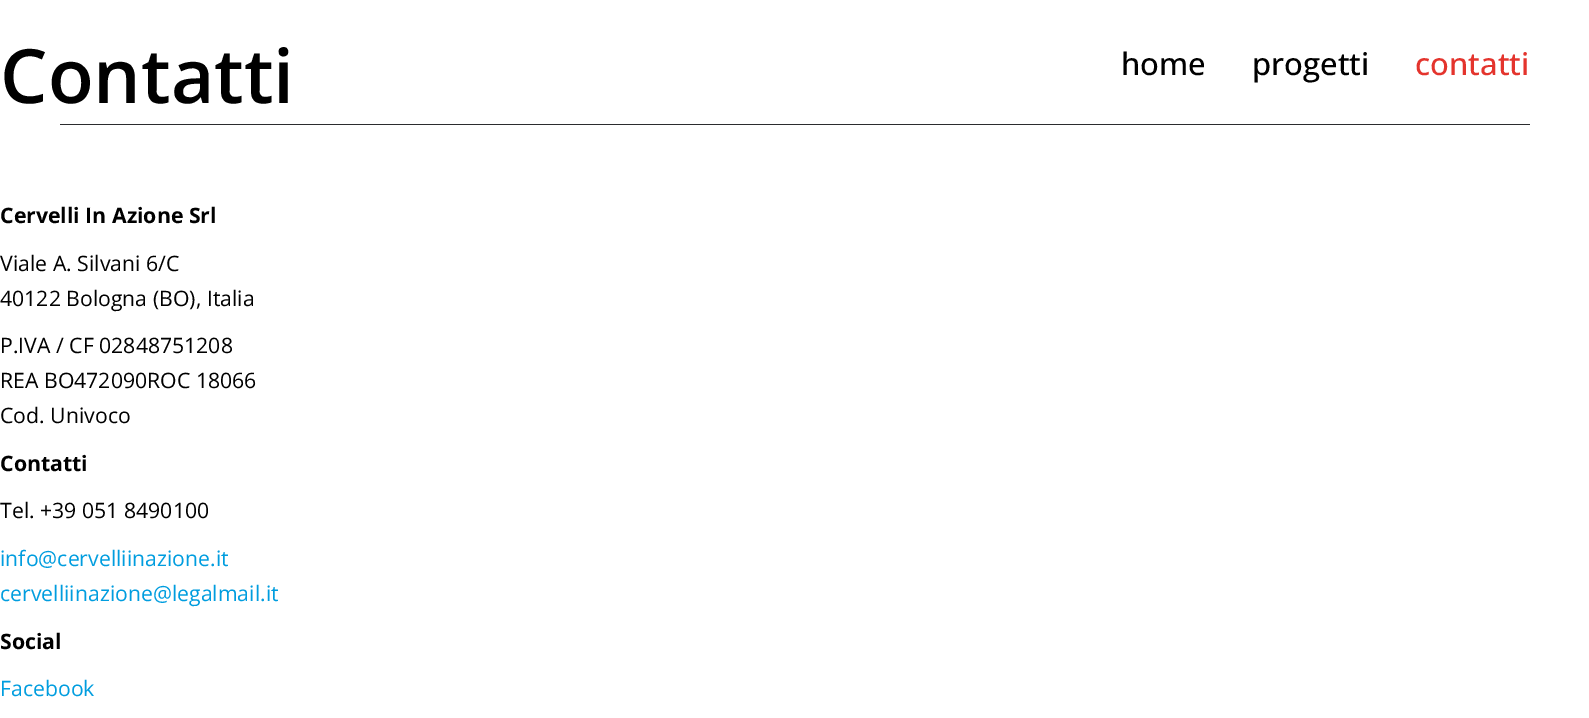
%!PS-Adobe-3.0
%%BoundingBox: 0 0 1589 718
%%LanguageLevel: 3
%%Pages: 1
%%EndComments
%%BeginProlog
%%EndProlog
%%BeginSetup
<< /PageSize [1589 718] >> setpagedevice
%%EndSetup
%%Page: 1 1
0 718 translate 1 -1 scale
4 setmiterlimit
1 setgray
0 0 1589 718 rectfill
0.169 0.173 0.18 setrgbcolor
60 124 1470 1 rectfill
/OpenSans-SemiBold [75 0 0 -75 0 0] selectfont
0 setgray
0 103 moveto (Contatti) show
/OpenSans-Bold [21.25 0 0 -21.25 0 0] selectfont
0 223 moveto (Cervelli In Azione Srl) show
/OpenSans-Regular [21.25 0 0 -21.25 0 0] selectfont
0 271 moveto (Viale A. Silvani 6/C) show
0 306 moveto (40122 Bologna \(BO\), Italia) show
0 353 moveto (P.IVA / CF 02848751208) show
0 388 moveto (REA BO472090ROC 18066) show
0 423 moveto (Cod. Univoco) show
/OpenSans-Bold [21.25 0 0 -21.25 0 0] selectfont
0 471 moveto (Contatti) show
/OpenSans-Regular [21.25 0 0 -21.25 0 0] selectfont
0 518 moveto (Tel. +39 051 8490100) show
0 0.616 0.875 setrgbcolor
0 566 moveto (info@cervelliinazione.it) show
0 601 moveto (cervelliinazione@legalmail.it) show
/OpenSans-Bold [21.25 0 0 -21.25 0 0] selectfont
0 setgray
0 649 moveto (Social) show
/OpenSans-Regular [21.25 0 0 -21.25 0 0] selectfont
0 0.616 0.875 setrgbcolor
0 696 moveto (Facebook) show
/OpenSans-Medium [31 0 0 -31 0 0] selectfont
0 setgray
1121 75 moveto (home) show
1252 75 moveto (progetti) show
0.894 0.204 0.176 setrgbcolor
1415 75 moveto (contatti) show
showpage
%%EOF
